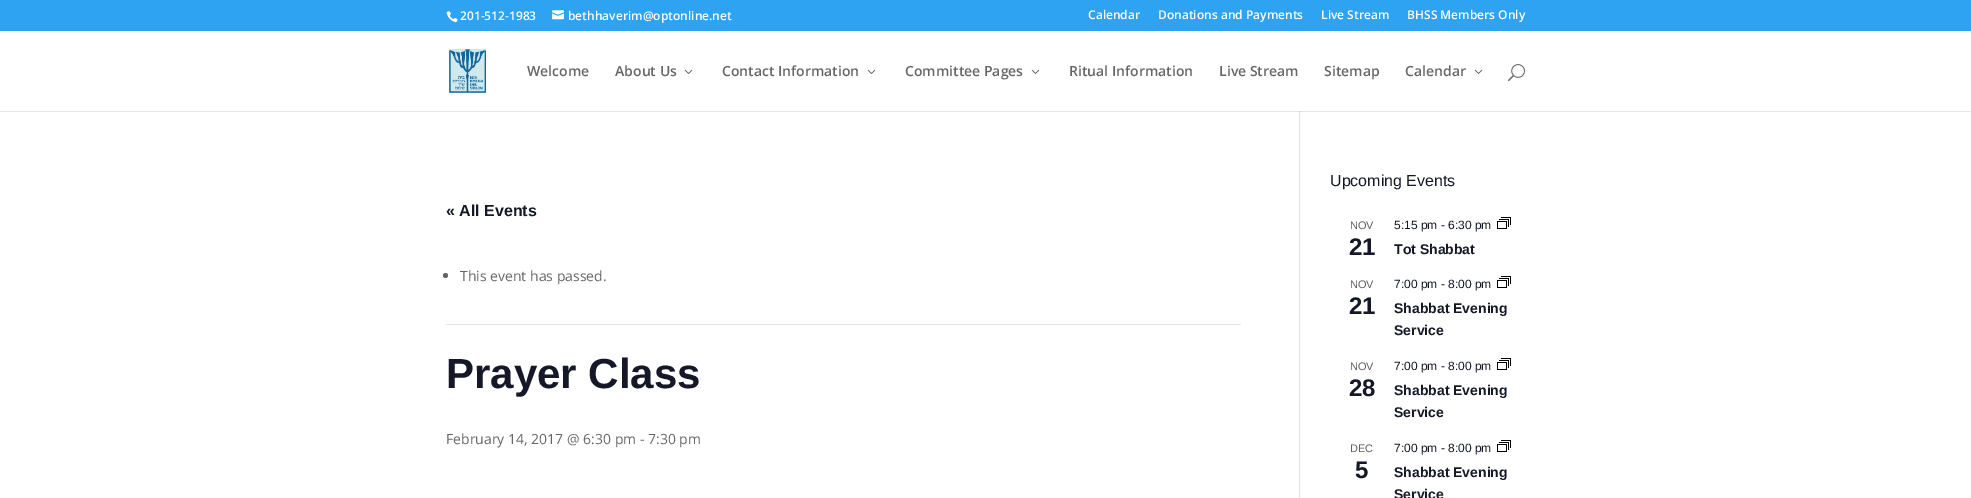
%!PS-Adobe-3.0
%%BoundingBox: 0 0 1971 498
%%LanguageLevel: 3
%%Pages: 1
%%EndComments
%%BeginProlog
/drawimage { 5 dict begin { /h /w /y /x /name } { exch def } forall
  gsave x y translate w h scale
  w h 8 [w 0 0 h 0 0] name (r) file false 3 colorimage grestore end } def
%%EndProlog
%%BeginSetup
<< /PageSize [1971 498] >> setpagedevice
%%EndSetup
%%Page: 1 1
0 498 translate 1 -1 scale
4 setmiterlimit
1 setgray
0 0 1971 498 rectfill
0.18 0.639 0.949 setrgbcolor
0 0 1971 31 rectfill
(images/1.raw) 446 11 12 12 drawimage
(images/2.raw) 552 10 12 10 drawimage
(images/3.raw) 449 49 37 44 drawimage
(images/4.raw) 684 69 9 5 drawimage
(images/4.raw) 867 69 9 5 drawimage
(images/4.raw) 1031 69 9 5 drawimage
(images/4.raw) 1474 69 9 5 drawimage
(images/5.raw) 1508 64 17 18 drawimage
0.902 setgray
0 111 1971 1 rectfill
0.886 setgray
1299 111 1 387 rectfill
0.796 setgray
1299 111 1 1 rectfill
0.894 setgray
446 324 795 1 rectfill
0.4 setgray
newpath 445.5 275.5 2.5 0 360 arc closepath fill
(images/6.raw) 1497 217 14 12 drawimage
(images/6.raw) 1497 276 14 12 drawimage
(images/6.raw) 1497 358 14 12 drawimage
(images/6.raw) 1497 440 14 12 drawimage
/OpenSans-SemiBold [12 0 0 -12 0 0] selectfont
1 setgray
460 20 moveto (201-512-1983) show
568 20 moveto (bethhaverim@optonline.net) show
1088 19 moveto (Calendar) show
1158 19 moveto (Donations and Payments) show
1321 19 moveto (Live Stream) show
1407 19 moveto (BHSS Members Only) show
/OpenSans-SemiBold [14 0 0 -14 0 0] selectfont
0.4 setgray
527 76 moveto (Welcome) show
615 76 moveto (About Us) show
722 76 moveto (Contact Information) show
905 76 moveto (Committee Pages) show
1069 76 moveto (Ritual Information) show
1219 76 moveto (Live Stream) show
1324 76 moveto (Sitemap) show
1405 76 moveto (Calendar) show
/LiberationSans-Bold [16 0 0 -16 0 0] selectfont
0.078 0.094 0.153 setrgbcolor
446 216 moveto (« All Events) show
/OpenSans-Regular [14 0 0 -14 0 0] selectfont
0.4 setgray
460 281 moveto (This event has passed.) show
/LiberationSans-Bold [42 0 0 -42 0 0] selectfont
0.078 0.094 0.153 setrgbcolor
446 388 moveto (Prayer Class) show
/OpenSans-Regular [14 0 0 -14 0 0] selectfont
0.4 setgray
446 444 moveto (February 14, 2017 @ 6:30 pm - 7:30 pm) show
/LiberationSans-Regular [16 0 0 -16 0 0] selectfont
0.078 0.094 0.153 setrgbcolor
1330 186 moveto (Upcoming Events) show
/LiberationSans-Regular [11 0 0 -11 0 0] selectfont
0.365 setgray
1350 229 moveto (NOV) show
/LiberationSans-Bold [24 0 0 -24 0 0] selectfont
0.078 0.094 0.153 setrgbcolor
1349 255 moveto (21) show
/LiberationSans-Regular [12 0 0 -12 0 0] selectfont
1394 229 moveto (5:15 pm - 6:30 pm) show
/LiberationSans-Bold [14 0 0 -14 0 0] selectfont
1394 254 moveto (Tot Shabbat) show
/LiberationSans-Regular [11 0 0 -11 0 0] selectfont
0.365 setgray
1350 288 moveto (NOV) show
/LiberationSans-Bold [24 0 0 -24 0 0] selectfont
0.078 0.094 0.153 setrgbcolor
1349 314 moveto (21) show
/LiberationSans-Regular [12 0 0 -12 0 0] selectfont
1394 288 moveto (7:00 pm - 8:00 pm) show
/LiberationSans-Bold [14 0 0 -14 0 0] selectfont
1394 313 moveto (Shabbat Evening) show
1394 335 moveto (Service) show
/LiberationSans-Regular [11 0 0 -11 0 0] selectfont
0.365 setgray
1350 370 moveto (NOV) show
/LiberationSans-Bold [24 0 0 -24 0 0] selectfont
0.078 0.094 0.153 setrgbcolor
1349 396 moveto (28) show
/LiberationSans-Regular [12 0 0 -12 0 0] selectfont
1394 370 moveto (7:00 pm - 8:00 pm) show
/LiberationSans-Bold [14 0 0 -14 0 0] selectfont
1394 395 moveto (Shabbat Evening) show
1394 417 moveto (Service) show
/LiberationSans-Regular [11 0 0 -11 0 0] selectfont
0.365 setgray
1350 452 moveto (DEC) show
/LiberationSans-Bold [24 0 0 -24 0 0] selectfont
0.078 0.094 0.153 setrgbcolor
1355 478 moveto (5) show
/LiberationSans-Regular [12 0 0 -12 0 0] selectfont
1394 452 moveto (7:00 pm - 8:00 pm) show
/LiberationSans-Bold [14 0 0 -14 0 0] selectfont
1394 477 moveto (Shabbat Evening) show
1394 499 moveto (Service) show
showpage
%%EOF
